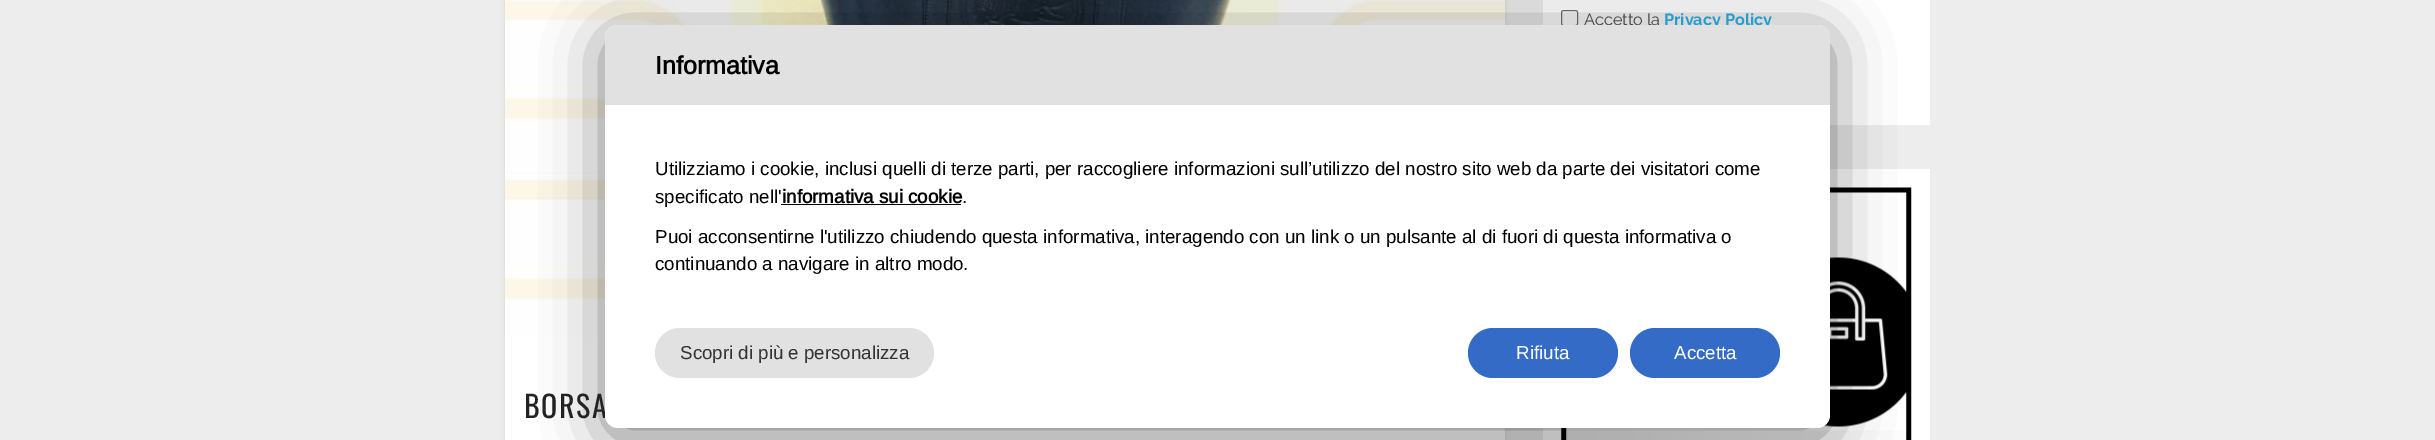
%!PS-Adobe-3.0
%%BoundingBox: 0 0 2435 440
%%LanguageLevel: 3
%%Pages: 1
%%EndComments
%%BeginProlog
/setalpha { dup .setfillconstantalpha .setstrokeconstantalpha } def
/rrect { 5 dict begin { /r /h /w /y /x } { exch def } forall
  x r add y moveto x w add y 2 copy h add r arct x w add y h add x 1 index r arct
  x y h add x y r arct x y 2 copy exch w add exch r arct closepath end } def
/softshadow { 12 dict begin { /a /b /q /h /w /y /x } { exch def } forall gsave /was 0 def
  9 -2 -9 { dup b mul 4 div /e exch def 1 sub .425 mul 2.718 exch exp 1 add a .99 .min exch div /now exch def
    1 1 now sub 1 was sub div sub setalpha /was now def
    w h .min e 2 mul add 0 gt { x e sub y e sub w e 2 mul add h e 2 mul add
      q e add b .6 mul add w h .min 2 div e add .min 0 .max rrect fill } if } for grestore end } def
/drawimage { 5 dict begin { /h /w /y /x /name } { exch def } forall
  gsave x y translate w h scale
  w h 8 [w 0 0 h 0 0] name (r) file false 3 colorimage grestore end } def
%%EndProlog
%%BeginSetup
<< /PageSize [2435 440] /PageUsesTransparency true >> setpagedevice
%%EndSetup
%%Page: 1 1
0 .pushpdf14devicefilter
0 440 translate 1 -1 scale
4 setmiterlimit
0.933 0.929 0.929 setrgbcolor
0 0 2435 440 rectfill
1 setgray
1543 0 387 125 rectfill
0.463 setgray
1561.5 10.5 16 15 2 rrect stroke
1 setgray
1543 169 387 271 rectfill
(images/1.raw) 1561 187 351 253 drawimage
0 setgray
505 -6 1000 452 0 2 0.1 softshadow
1 setgray
505 337 1000 103 rectfill
(images/2.raw) 505 0 1000 338 drawimage
0 setgray
605 35 1225 403 13 30 0.5 softshadow
/Raleway-Regular [16.25 0 0 -16.25 0 0] selectfont
0.267 setgray
1584 25 moveto (Accetto la) show
/Raleway-Bold [16.25 0 0 -16.25 0 0] selectfont
0.157 0.616 0.8 setrgbcolor
1664 25 moveto (Privacy Policy) show
/Oswald-Regular [30 0 0 -30 0 0] selectfont
0.137 setgray
524 418 moveto 1.5 0 (BORSA) ashow
1 setgray
605 25 1225 403 13 rrect fill
0.882 setgray
newpath 618 25 moveto 1817 25 lineto 1824 25 1830 31 1830 38 curveto 1830 105 lineto 605 105 lineto 605 38 lineto 605 31 611 25 618 25 curveto closepath fill
/Arimo-Bold [25 0 0 -25 0 0] selectfont
0 setgray
655 74 moveto (Informativa) show
/Arimo-Regular [18.75 0 0 -18.75 0 0] selectfont
655 175 moveto (Utilizziamo i cookie, inclusi quelli di terze parti, per raccogliere informazioni sull’utilizzo del nostro sito web da parte dei visitatori come) show
655 203 moveto (specificato nell') show
/Arimo-Bold [18.75 0 0 -18.75 0 0] selectfont
782 203 moveto (informativa sui cookie) show
781 204 180 1 rectfill
/Arimo-Regular [18.75 0 0 -18.75 0 0] selectfont
962 203 moveto (.) show
655 243 moveto (Puoi acconsentirne l'utilizzo chiudendo questa informativa, interagendo con un link o un pulsante al di fuori di questa informativa o) show
655 270 moveto (continuando a navigare in altro modo.) show
0.882 setgray
655 328 279 50 25 rrect fill
0.2 setgray
680 359 moveto (Scopri di più e personalizza) show
0.204 0.42 0.78 setrgbcolor
1468 328 150 50 25 rrect fill
1 setgray
1516 359 moveto (Rifiuta) show
0.204 0.42 0.78 setrgbcolor
1630 328 150 50 25 rrect fill
1 setgray
1674 359 moveto (Accetta) show
.poppdf14devicefilter showpage
%%EOF
